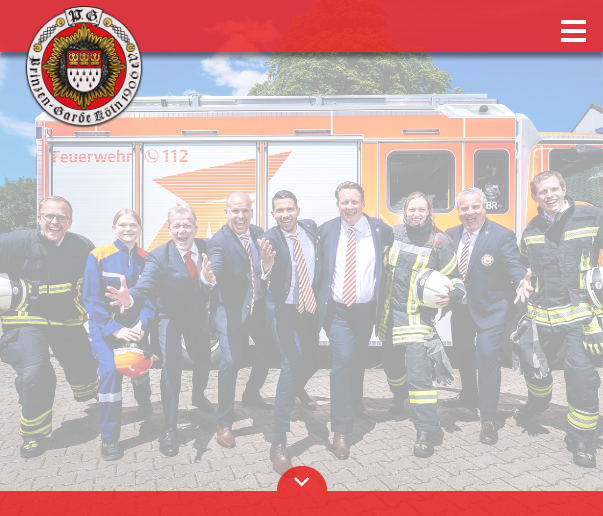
%!PS-Adobe-3.0
%%BoundingBox: 0 0 603 516
%%LanguageLevel: 3
%%Pages: 1
%%EndComments
%%BeginProlog
/setalpha { dup .setfillconstantalpha .setstrokeconstantalpha } def
/rrect { 5 dict begin { /r /h /w /y /x } { exch def } forall
  x r add y moveto x w add y 2 copy h add r arct x w add y h add x 1 index r arct
  x y h add x y r arct x y 2 copy exch w add exch r arct closepath end } def
/softshadow { 12 dict begin { /a /b /q /h /w /y /x } { exch def } forall gsave /was 0 def
  9 -2 -9 { dup b mul 4 div /e exch def 1 sub .425 mul 2.718 exch exp 1 add a .99 .min exch div /now exch def
    1 1 now sub 1 was sub div sub setalpha /was now def
    w h .min e 2 mul add 0 gt { x e sub y e sub w e 2 mul add h e 2 mul add
      q e add b .6 mul add w h .min 2 div e add .min 0 .max rrect fill } if } for grestore end } def
/drawimage { 5 dict begin { /h /w /y /x /name } { exch def } forall
  gsave x y translate w h scale
  w h 8 [w 0 0 h 0 0] name (r) file false 3 colorimage grestore end } def
%%EndProlog
%%BeginSetup
<< /PageSize [603 516] /PageUsesTransparency true >> setpagedevice
%%EndSetup
%%Page: 1 1
0 .pushpdf14devicefilter
0 516 translate 1 -1 scale
4 setmiterlimit
1 setgray
0 0 603 516 rectfill
(images/1.raw) 0 0 603 516 drawimage
0.8 setalpha
0.918 0.082 0.082 setrgbcolor
0 491 603 25 rectfill
newpath 302 466 moveto 316 466 327 477 327 491 curveto 277 491 lineto 277 477 288 466 302 466 curveto closepath fill
1 setalpha
(images/2.raw) 294 477 16 10 drawimage
gsave
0 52 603 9 rectclip
0 setgray
0 5 603 52 0 2.5 0.5 softshadow
grestore
0.8 setalpha
0 0 603 52 rectfill
1 setalpha
(images/3.raw) 24 6 120 123 drawimage
1 setgray
561 20 25 4 rectfill
561 29 25 4 rectfill
561 38 25 4 rectfill
.poppdf14devicefilter showpage
%%EOF
